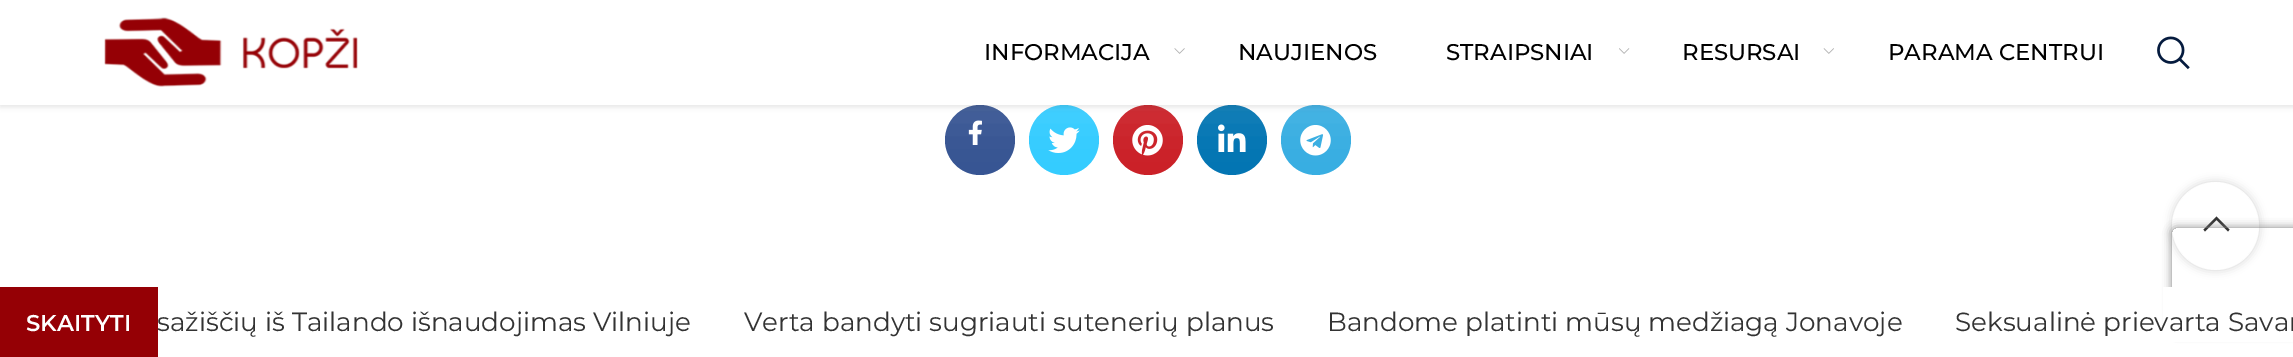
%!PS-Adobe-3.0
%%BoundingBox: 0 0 2293 357
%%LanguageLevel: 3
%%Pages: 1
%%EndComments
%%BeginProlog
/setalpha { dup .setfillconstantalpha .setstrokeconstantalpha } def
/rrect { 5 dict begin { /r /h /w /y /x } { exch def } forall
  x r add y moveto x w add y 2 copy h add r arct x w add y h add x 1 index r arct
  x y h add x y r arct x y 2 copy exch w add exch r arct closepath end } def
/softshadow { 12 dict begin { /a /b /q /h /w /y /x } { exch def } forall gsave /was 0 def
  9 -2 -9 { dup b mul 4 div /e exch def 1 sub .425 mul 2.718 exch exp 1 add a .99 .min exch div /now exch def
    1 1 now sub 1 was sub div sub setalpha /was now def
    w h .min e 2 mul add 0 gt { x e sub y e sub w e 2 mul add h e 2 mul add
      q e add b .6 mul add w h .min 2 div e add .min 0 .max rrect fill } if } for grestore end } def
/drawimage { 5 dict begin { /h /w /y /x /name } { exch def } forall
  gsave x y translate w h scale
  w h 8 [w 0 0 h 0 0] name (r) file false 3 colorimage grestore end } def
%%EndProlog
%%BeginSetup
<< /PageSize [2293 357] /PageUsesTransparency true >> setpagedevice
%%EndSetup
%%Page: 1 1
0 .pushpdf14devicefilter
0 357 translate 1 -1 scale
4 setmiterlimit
1 setgray
0 0 2293 357 rectfill
0.212 0.329 0.576 setrgbcolor
newpath 980 140 35 0 360 arc closepath fill
0.2 0.8 1 setrgbcolor
newpath 1064 140 35 0 360 arc closepath fill
0.796 0.125 0.153 setrgbcolor
newpath 1148 140 35 0 360 arc closepath fill
0.008 0.455 0.702 setrgbcolor
newpath 1232 140 35 0 360 arc closepath fill
0.216 0.682 0.886 setrgbcolor
newpath 1316 140 35 0 360 arc closepath fill
0 setgray
0 2 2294 105 0 2.5 0.1 softshadow
(images/6.raw) 968 120 14 25 drawimage
(images/7.raw) 1048 127 32 26 drawimage
(images/8.raw) 1132 125 31 31 drawimage
(images/9.raw) 1218 124 28 28 drawimage
(images/10.raw) 1300 125 31 31 drawimage
gsave
newpath 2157 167 moveto 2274 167 lineto 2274 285 lineto 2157 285 lineto closepath 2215.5 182 moveto 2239.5 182 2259 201.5 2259 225.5 curveto 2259 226.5 lineto 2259 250.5 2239.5 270 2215.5 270 curveto 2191.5 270 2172 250.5 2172 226.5 curveto 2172 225.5 lineto 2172 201.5 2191.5 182 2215.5 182 curveto closepath eoclip newpath
2172 182 87 88 43.5 4.5 0.17 softshadow
grestore
0.9 setalpha
1 setgray
2172 182 87 88 43.5 rrect fill
1 setalpha
0 12 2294 105 0 25.5 0.1 softshadow
0 0 2293 105 rectfill
(images/1.raw) 104 17 254 70 drawimage
(images/2.raw) 1174 48 11 6 drawimage
(images/3.raw) 1619 48 11 6 drawimage
(images/4.raw) 1823 48 11 6 drawimage
(images/5.raw) 2157 36 33 34 drawimage
0.2 setgray
newpath 2228 231.5 moveto 2229.5 229.5 lineto 2216.5 216.5 lineto 2203.5 229.5 lineto 2205 231.5 lineto 2216.5 220 lineto closepath fill
gsave
newpath 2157 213 moveto 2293 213 lineto 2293 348 lineto 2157 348 lineto closepath 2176 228 moveto 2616 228 lineto 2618 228 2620 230 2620 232 curveto 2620 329 lineto 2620 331 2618 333 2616 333 curveto 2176 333 lineto 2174 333 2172 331 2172 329 curveto 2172 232 lineto 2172 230 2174 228 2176 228 curveto closepath eoclip newpath
0.502 setgray
2172 228 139 105 4 4.5 1 softshadow
grestore
1 setgray
2163 287 130 55 rectfill
0.584 0 0.02 setrgbcolor
0 287 158 70 rectfill
/Montserrat-Medium [22.75 0 0 -22.75 0 0] selectfont
0 setgray
984 60 moveto (INFORMACIJA) show
1238 60 moveto (NAUJIENOS) show
1446 60 moveto (STRAIPSNIAI) show
1682 60 moveto (RESURSAI) show
1888 60 moveto (PARAMA CENTRUI) show
/Montserrat-SemiBold [22.75 0 0 -22.75 0 0] selectfont
1 setgray
26 331 moveto (SKAITYTI) show
/Montserrat-Regular [26.25 0 0 -26.25 0 0] selectfont
0.2 setgray
157 331 moveto (sažiščių iš Tailando išnaudojimas Vilniuje) show
744 331 moveto (Verta bandyti sugriauti sutenerių planus) show
1327 331 moveto (Bandome platinti mūsų medžiagą Jonavoje) show
1955 331 moveto (Seksualinė prievarta Savar) show
.poppdf14devicefilter showpage
%%EOF
